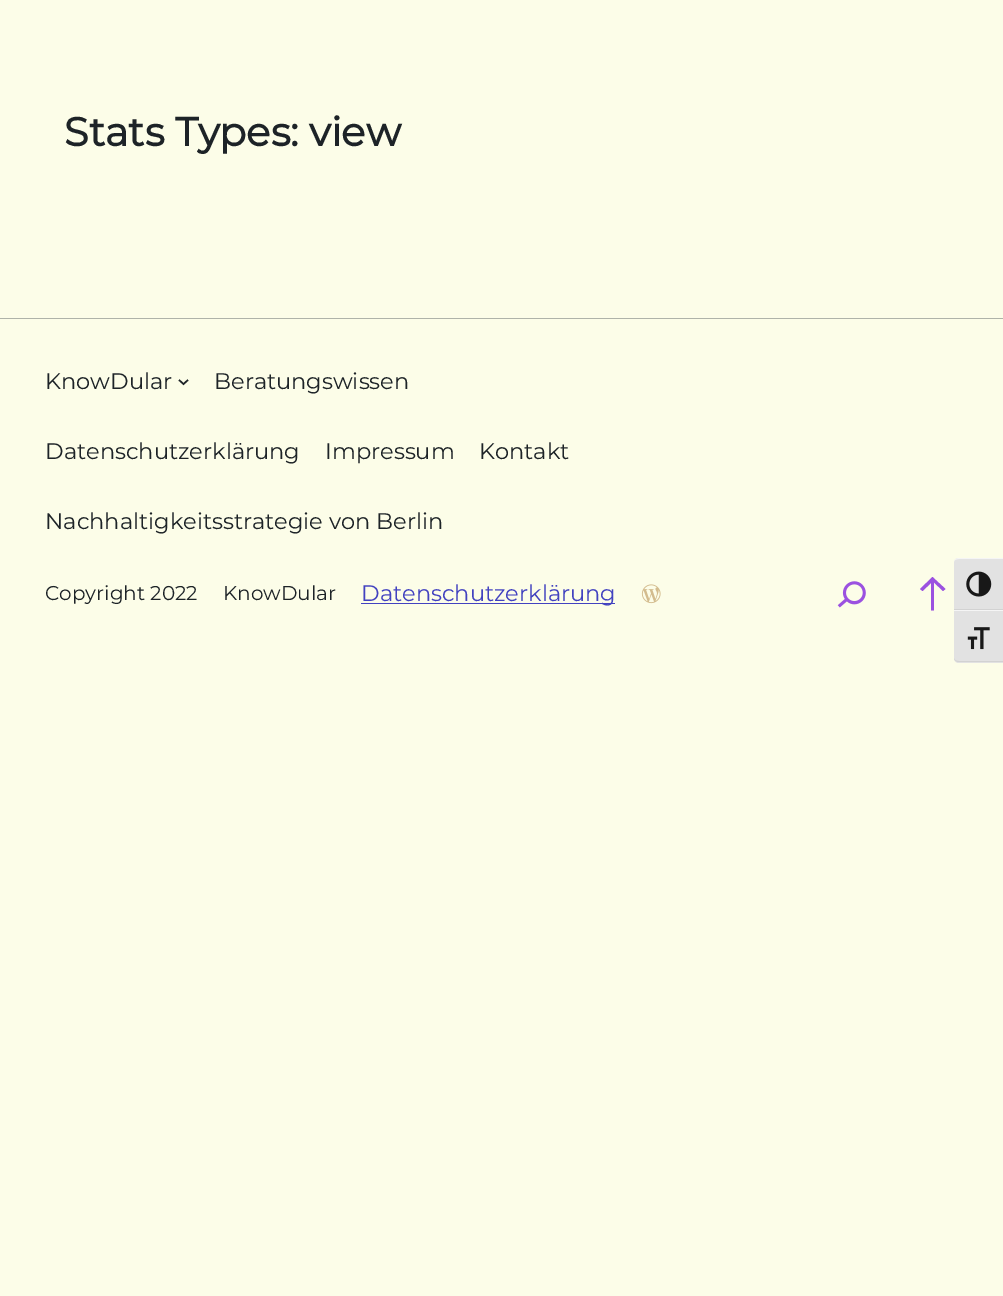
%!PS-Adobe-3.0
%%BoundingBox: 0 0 1003 1296
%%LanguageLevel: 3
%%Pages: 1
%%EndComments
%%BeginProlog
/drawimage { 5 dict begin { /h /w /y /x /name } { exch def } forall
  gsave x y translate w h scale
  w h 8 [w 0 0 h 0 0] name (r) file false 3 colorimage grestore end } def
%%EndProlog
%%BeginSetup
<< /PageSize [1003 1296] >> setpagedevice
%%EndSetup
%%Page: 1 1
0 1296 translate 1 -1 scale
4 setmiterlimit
0.988 0.992 0.91 setrgbcolor
0 0 1003 1296 rectfill
0.686 0.702 0.663 setrgbcolor
0 318 1003 1 rectfill
0.114 0.137 0.153 setrgbcolor
1.5 setlinewidth
newpath 179 380 moveto 183.5 384 lineto 188 380 lineto stroke
0.259 0.259 0.753 setrgbcolor
361 603 254 1 rectfill
(images/1.raw) 641 584 20 20 drawimage
(images/2.raw) 837 581 29 27 drawimage
0.608 0.318 0.878 setrgbcolor
newpath 932.5 577 moveto 920 589 lineto 922.5 591 lineto 931 583 lineto 931 610.5 lineto 934 610.5 lineto 934 582.5 lineto 943 591 lineto 945.5 589 lineto closepath fill
0.886 setgray
newpath 959 558 moveto 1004 558 lineto 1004 610 lineto 954 610 lineto 954 563 lineto 954 560 956 558 959 558 curveto closepath fill
0.961 setgray
newpath 959 558 moveto 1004 558 lineto 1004 559 lineto 959 559 lineto 956 559 954 560 954 562 curveto 954 560 956 558 959 558 curveto closepath fill
0.824 setgray
954 609 49 1 rectfill
(images/3.raw) 966 571 26 26 drawimage
0.886 setgray
newpath 954 610 moveto 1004 610 lineto 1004 663 lineto 959 663 lineto 956 663 954 661 954 658 curveto closepath fill
0.961 setgray
954 610 49 1 rectfill
0.824 setgray
newpath 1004 661 moveto 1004 662 lineto 959 662 lineto 956 662 954 660 954 658 curveto 954 660 956 661 959 661 curveto closepath fill
(images/4.raw) 967 627 23 23 drawimage
/Montserrat-Bold [40 0 0 -40 0 0] selectfont
0.114 0.137 0.153 setrgbcolor
64 146 moveto (Stats Types: view) show
/Montserrat-Thin [22.5 0 0 -22.5 0 0] selectfont
45 389 moveto (KnowDular) show
214 389 moveto (Beratungswissen) show
45 459 moveto (Datenschutzerklärung) show
325 459 moveto (Impressum) show
479 459 moveto (Kontakt) show
45 529 moveto (Nachhaltigkeitsstrategie von Berlin) show
/Montserrat-Thin [20 0 0 -20 0 0] selectfont
45 600 moveto (Copyright 2022) show
223 600 moveto (KnowDular) show
/Montserrat-Thin [22.5 0 0 -22.5 0 0] selectfont
0.259 0.259 0.753 setrgbcolor
361 601 moveto (Datenschutzerklärung) show
showpage
%%EOF
